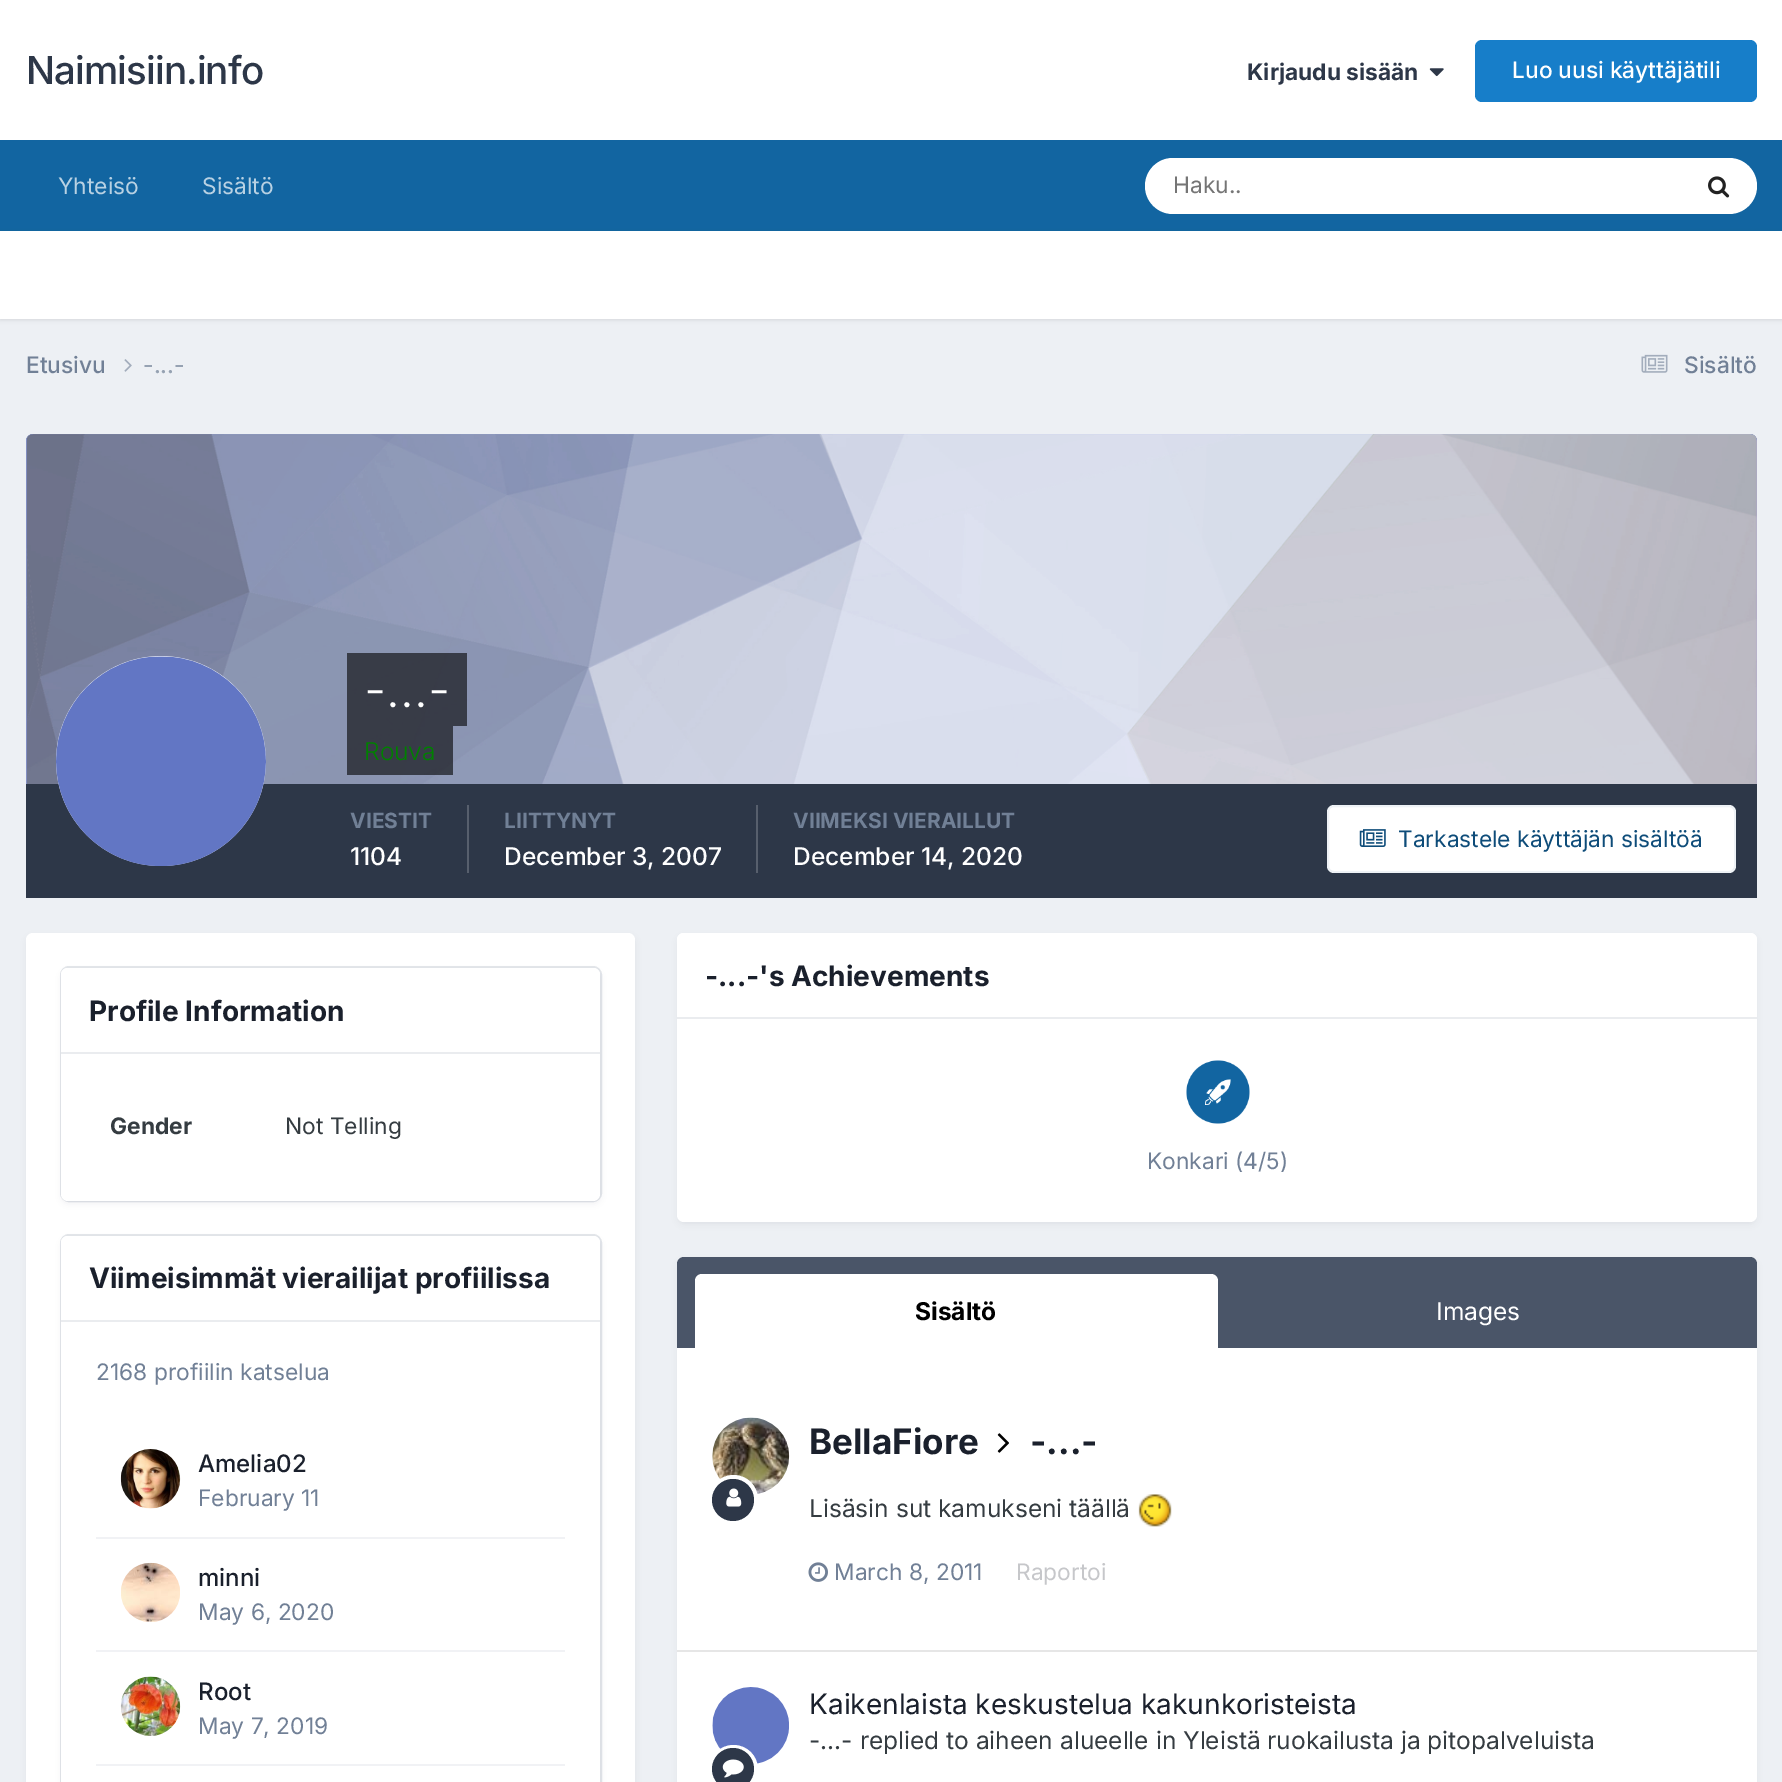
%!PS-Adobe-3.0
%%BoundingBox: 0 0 1782 1782
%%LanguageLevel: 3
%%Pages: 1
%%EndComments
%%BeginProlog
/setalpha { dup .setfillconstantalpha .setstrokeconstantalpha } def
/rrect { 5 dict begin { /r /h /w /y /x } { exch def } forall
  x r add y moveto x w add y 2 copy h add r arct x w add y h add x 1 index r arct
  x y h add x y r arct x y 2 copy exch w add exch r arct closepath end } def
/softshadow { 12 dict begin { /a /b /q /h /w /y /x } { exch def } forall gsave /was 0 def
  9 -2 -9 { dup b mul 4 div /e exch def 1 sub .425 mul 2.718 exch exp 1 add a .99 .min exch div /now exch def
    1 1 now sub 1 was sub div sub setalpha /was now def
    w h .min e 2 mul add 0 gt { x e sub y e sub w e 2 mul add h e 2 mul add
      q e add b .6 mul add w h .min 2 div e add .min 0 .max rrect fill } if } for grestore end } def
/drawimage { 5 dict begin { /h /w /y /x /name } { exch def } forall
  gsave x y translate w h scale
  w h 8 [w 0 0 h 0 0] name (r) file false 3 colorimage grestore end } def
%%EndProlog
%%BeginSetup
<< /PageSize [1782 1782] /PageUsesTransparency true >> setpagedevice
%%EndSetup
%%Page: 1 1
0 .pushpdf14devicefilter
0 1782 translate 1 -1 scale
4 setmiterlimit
0.929 0.941 0.957 setrgbcolor
0 0 1782 1782 rectfill
1 setgray
0 0 1782 140 rectfill
(images/1.raw) 1429 68 15 9 drawimage
0.09 0.494 0.788 setrgbcolor
1475 40 282 62 7 rrect fill
0.071 0.396 0.631 setrgbcolor
0 140 1782 91 rectfill
1 setgray
1145 158 612 56 28 rrect fill
(images/2.raw) 1708 176 22 22 drawimage
0 setgray
0 233 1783 87 0 2 0.1 softshadow
1 setgray
0 231 1782 88 rectfill
(images/3.raw) 124 359 8 13 drawimage
(images/4.raw) 1641 354 27 19 drawimage
0.6 0.678 1 setrgbcolor
newpath 33 434 moveto 1750 434 lineto 1754 434 1757 437 1757 441 curveto 1757 784 lineto 26 784 lineto 26 441 lineto 26 437 29 434 33 434 curveto closepath fill
(images/5.raw) 26 434 1731 350 drawimage
0.176 0.216 0.282 setrgbcolor
26 784 1731 114 rectfill
1 setgray
newpath 161 761 105 0 360 arc closepath fill
(images/6.raw) 56 656 210 210 drawimage
0.6 setalpha
0 setgray
347 653 120 73 rectfill
347 726 106 49 rectfill
1 setalpha
0.341 0.373 0.427 setrgbcolor
467 805 2 68 rectfill
756 805 2 68 rectfill
1 setgray
1327 805 409 68 7 rrect fill
0.07 setalpha
0.055 0.298 0.475 setrgbcolor
2 setlinewidth
1328 806 407 66 6 rrect stroke
1 setalpha
(images/7.raw) 1359 829 27 18 drawimage
0.176 0.216 0.282 setrgbcolor
28 938 606 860 5 3.5 0.1 softshadow
1 setgray
26 933 609 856 7 rrect fill
0.176 0.216 0.282 setrgbcolor
63 973 536 229 5 3.5 0.1 softshadow
0.2 setalpha
0.443 0.502 0.588 setrgbcolor
61 967 540 234 8 rrect stroke
1 setalpha
1 setgray
61 968 539 233 7 rrect fill
newpath 68 968 moveto 593 968 lineto 597 968 600 971 600 975 curveto 600 1054 lineto 61 1054 lineto 61 975 lineto 61 971 64 968 68 968 curveto closepath fill
0.918 0.925 0.937 setrgbcolor
61 1052 539 2 rectfill
0.176 0.216 0.282 setrgbcolor
63 1241 536 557 5 3.5 0.1 softshadow
0.2 setalpha
0.443 0.502 0.588 setrgbcolor
61 1235 540 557 8 rrect stroke
1 setalpha
1 setgray
61 1236 539 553 7 rrect fill
newpath 68 1236 moveto 593 1236 lineto 597 1236 600 1239 600 1243 curveto 600 1321 lineto 61 1321 lineto 61 1243 lineto 61 1239 64 1236 68 1236 curveto closepath fill
0.918 0.925 0.937 setrgbcolor
61 1320 539 2 rectfill
0.945 0.949 0.961 setrgbcolor
96 1537 469 2 rectfill
(images/8.raw) 120 1449 61 60 drawimage
96 1650 469 2 rectfill
(images/9.raw) 121 1562 59 60 drawimage
96 1764 469 2 rectfill
(images/10.raw) 120 1676 61 60 drawimage
0.176 0.216 0.282 setrgbcolor
679 938 1076 285 5 3.5 0.1 softshadow
1 setgray
677 933 1080 289 7 rrect fill
newpath 684 933 moveto 1750 933 lineto 1754 933 1757 936 1757 940 curveto 1757 1019 lineto 677 1019 lineto 677 940 lineto 677 936 680 933 684 933 curveto closepath fill
0.918 0.925 0.937 setrgbcolor
677 1017 1080 2 rectfill
(images/11.raw) 1186 1060 64 64 drawimage
0.176 0.216 0.282 setrgbcolor
679 1262 1076 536 5 3.5 0.1 softshadow
1 setgray
677 1257 1080 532 7 rrect fill
0.29 0.333 0.408 setrgbcolor
newpath 684 1257 moveto 1750 1257 lineto 1754 1257 1757 1260 1757 1264 curveto 1757 1348 lineto 677 1348 lineto 677 1264 lineto 677 1260 680 1257 684 1257 curveto closepath fill
1 setgray
newpath 702 1274 moveto 1211 1274 lineto 1215 1274 1218 1277 1218 1281 curveto 1218 1348 lineto 695 1348 lineto 695 1281 lineto 695 1277 698 1274 702 1274 curveto closepath fill
0.902 setgray
677 1650 1080 2 rectfill
(images/12.raw) 712 1417 78 78 drawimage
(images/13.raw) 997 1433 12 20 drawimage
1 setgray
4 setlinewidth
newpath 733.5 1499.5 22.5 0 360 arc closepath stroke
0.176 0.216 0.282 setrgbcolor
newpath 733 1500 21 0 360 arc closepath fill
(images/14.raw) 726 1488 16 19 drawimage
(images/15.raw) 1138 1494 34 33 drawimage
(images/16.raw) 808 1562 20 20 drawimage
(images/17.raw) 712 1687 77 77 drawimage
1 setgray
newpath 733.5 1769.5 22.5 0 360 arc closepath stroke
0.176 0.216 0.282 setrgbcolor
newpath 733 1769 21 0 360 arc closepath fill
(images/18.raw) 722 1759 22 19 drawimage
/Inter-Medium [38.5 0 0 -38.5 0 0] selectfont
26 84 moveto -0.9 0 (Naimisiin.info) ashow
/Inter-Bold [22.75 0 0 -22.75 0 0] selectfont
1247 80 moveto (Kirjaudu sisään) show
/Inter-Medium [22.75 0 0 -22.75 0 0] selectfont
1 setgray
1512 78 moveto (Luo uusi käyttäjätili) show
/Inter-Regular [22.75 0 0 -22.75 0 0] selectfont
0.722 0.82 0.89 setrgbcolor
58 194 moveto (Yhteisö) show
202 194 moveto (Sisältö) show
0.459 setgray
1173 193 moveto (Haku..) show
/Inter-Medium [22.75 0 0 -22.75 0 0] selectfont
0.443 0.502 0.588 setrgbcolor
26 373 moveto (Etusivu) show
0.588 0.635 0.698 setrgbcolor
143 373 moveto (-...-) show
0.443 0.502 0.588 setrgbcolor
1684 373 moveto (Sisältö) show
/Inter-Light [49 0 0 -49 0 0] selectfont
1 setgray
364 707 moveto (-...-) show
/Inter-Light [24.5 0 0 -24.5 0 0] selectfont
0 0.502 0 setrgbcolor
364 760 moveto (Rouva) show
/Inter-Bold [21 0 0 -21 0 0] selectfont
0.443 0.502 0.588 setrgbcolor
350 828 moveto (VIESTIT) show
/Inter-Medium [24.5 0 0 -24.5 0 0] selectfont
1 setgray
350 865 moveto (1104) show
/Inter-Bold [21 0 0 -21 0 0] selectfont
0.443 0.502 0.588 setrgbcolor
504 828 moveto (LIITTYNYT) show
/Inter-Medium [24.5 0 0 -24.5 0 0] selectfont
1 setgray
504 865 moveto (December 3, 2007) show
/Inter-Bold [21 0 0 -21 0 0] selectfont
0.443 0.502 0.588 setrgbcolor
793 828 moveto (VIIMEKSI VIERAILLUT) show
/Inter-Medium [24.5 0 0 -24.5 0 0] selectfont
1 setgray
793 865 moveto (December 14, 2020) show
/Inter-Regular [22.75 0 0 -22.75 0 0] selectfont
0.055 0.298 0.475 setrgbcolor
1398 847 moveto (Tarkastele käyttäjän sisältöä) show
/Inter-Bold [28 0 0 -28 0 0] selectfont
0.102 0.125 0.173 setrgbcolor
89 1021 moveto (Profile Information) show
/Inter-Bold [22.75 0 0 -22.75 0 0] selectfont
0.208 0.235 0.255 setrgbcolor
110 1134 moveto (Gender) show
/Inter-Regular [22.75 0 0 -22.75 0 0] selectfont
285 1134 moveto (Not Telling) show
/Inter-Bold [28 0 0 -28 0 0] selectfont
0.102 0.125 0.173 setrgbcolor
89 1288 moveto (Viimeisimmät vierailijat profiilissa) show
/Inter-Regular [22.75 0 0 -22.75 0 0] selectfont
0.443 0.502 0.588 setrgbcolor
96 1380 moveto (2168 profiilin katselua) show
/Inter-Medium [24 0 0 -24 0 0] selectfont
0.102 0.125 0.173 setrgbcolor
198 1472 moveto (Amelia02) show
/Inter-Regular [22.75 0 0 -22.75 0 0] selectfont
0.443 0.502 0.588 setrgbcolor
198 1506 moveto (February 11) show
/Inter-Medium [24 0 0 -24 0 0] selectfont
0.102 0.125 0.173 setrgbcolor
198 1586 moveto (minni) show
/Inter-Regular [22.75 0 0 -22.75 0 0] selectfont
0.443 0.502 0.588 setrgbcolor
198 1620 moveto (May 6, 2020) show
/Inter-Medium [24 0 0 -24 0 0] selectfont
0.102 0.125 0.173 setrgbcolor
198 1700 moveto (Root) show
/Inter-Regular [22.75 0 0 -22.75 0 0] selectfont
0.443 0.502 0.588 setrgbcolor
198 1734 moveto (May 7, 2019) show
/Inter-Bold [28 0 0 -28 0 0] selectfont
0.102 0.125 0.173 setrgbcolor
705 986 moveto (-...-'s Achievements) show
/Inter-Regular [22.75 0 0 -22.75 0 0] selectfont
0.443 0.502 0.588 setrgbcolor
1147 1169 moveto (Konkari \(4/5\)) show
/Inter-Bold [24.5 0 0 -24.5 0 0] selectfont
0 setgray
915 1320 moveto (Sisältö) show
/Inter-Regular [24.5 0 0 -24.5 0 0] selectfont
1 setgray
1436 1320 moveto (Images) show
/Inter-Bold [35 0 0 -35 0 0] selectfont
0.102 0.125 0.173 setrgbcolor
809 1454 moveto (BellaFiore) show
1030 1454 moveto (-...-) show
/Inter-Regular [24.5 0 0 -24.5 0 0] selectfont
0.208 0.235 0.255 setrgbcolor
809 1517 moveto (Lisäsin sut kamukseni täällä) show
/Inter-Regular [22.75 0 0 -22.75 0 0] selectfont
0.443 0.502 0.588 setrgbcolor
834 1580 moveto (March 8, 2011) show
0.776 0.78 0.792 setrgbcolor
1016 1580 moveto (Raportoi) show
/Inter-Regular [28 0 0 -28 0 0] selectfont
0.102 0.125 0.173 setrgbcolor
809 1714 moveto (Kaikenlaista keskustelua kakunkoristeista) show
/Inter-Regular [24.5 0 0 -24.5 0 0] selectfont
0.208 0.235 0.255 setrgbcolor
809 1749 moveto (-...- replied to aiheen alueelle in Yleistä ruokailusta ja pitopalveluista) show
.poppdf14devicefilter showpage
%%EOF
